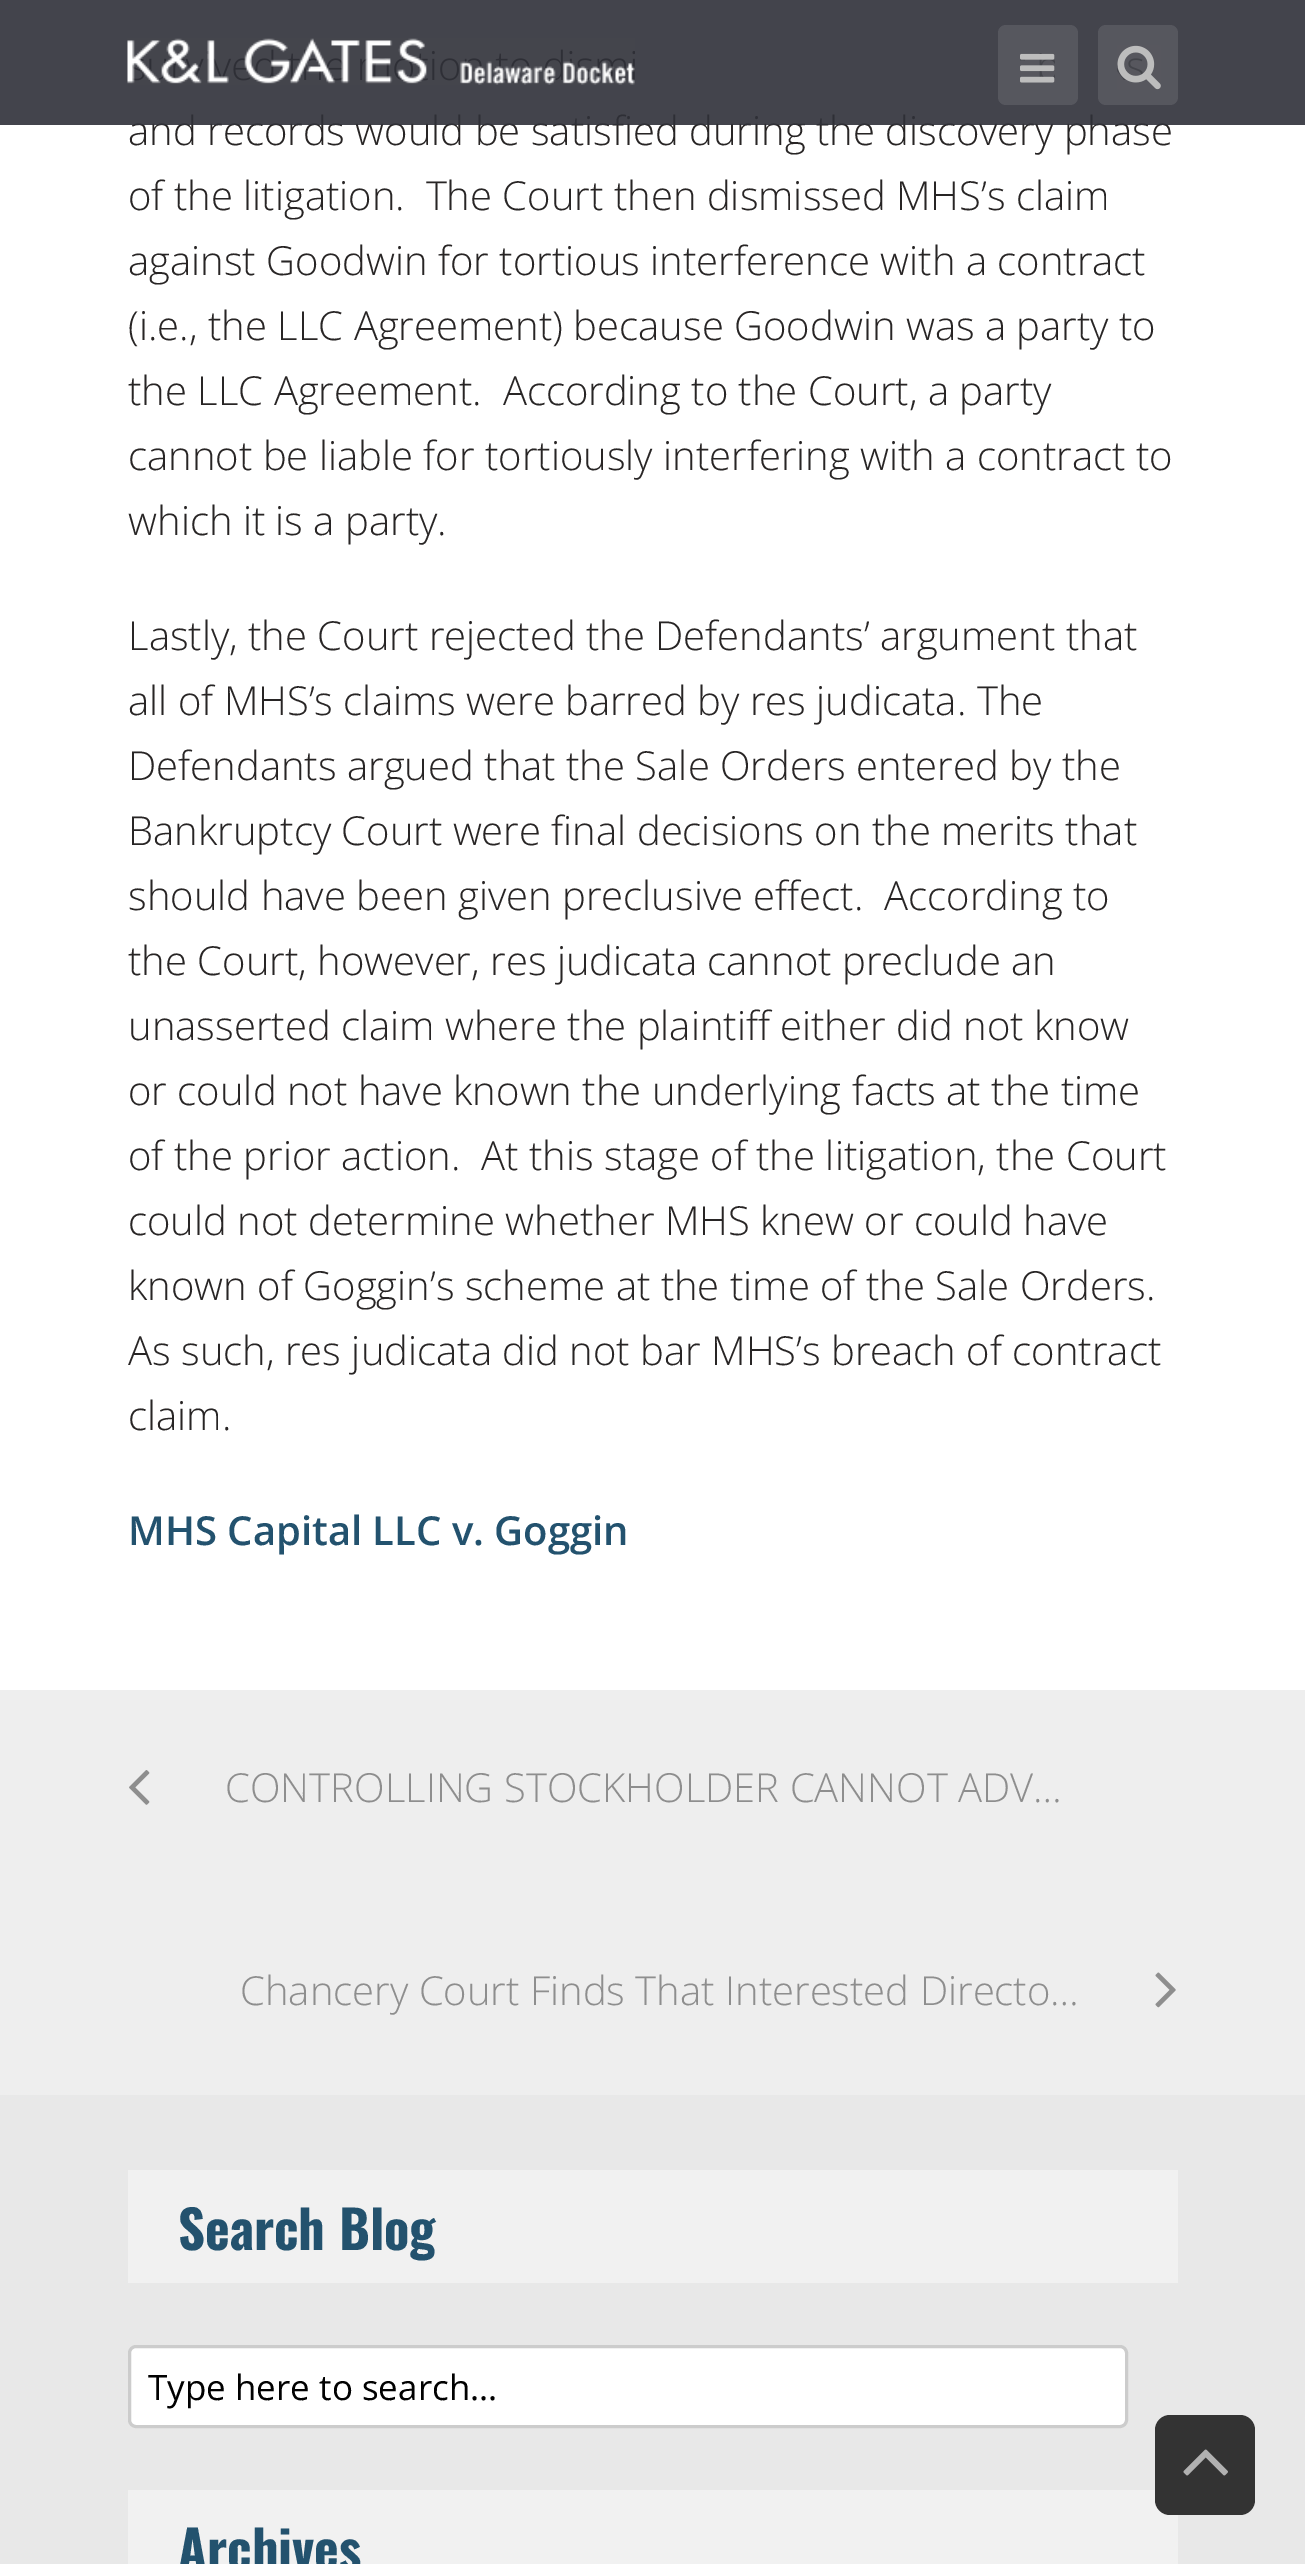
%!PS-Adobe-3.0
%%BoundingBox: 0 0 1305 2564
%%LanguageLevel: 3
%%Pages: 1
%%EndComments
%%BeginProlog
/setalpha { dup .setfillconstantalpha .setstrokeconstantalpha } def
/rrect { 5 dict begin { /r /h /w /y /x } { exch def } forall
  x r add y moveto x w add y 2 copy h add r arct x w add y h add x 1 index r arct
  x y h add x y r arct x y 2 copy exch w add exch r arct closepath end } def
/drawimage { 5 dict begin { /h /w /y /x /name } { exch def } forall
  gsave x y translate w h scale
  w h 8 [w 0 0 h 0 0] name (r) file false 3 colorimage grestore end } def
%%EndProlog
%%BeginSetup
<< /PageSize [1305 2564] /PageUsesTransparency true >> setpagedevice
%%EndSetup
%%Page: 1 1
0 .pushpdf14devicefilter
0 2564 translate 1 -1 scale
4 setmiterlimit
1 setgray
0 0 1305 2564 rectfill
0.933 setgray
1178 1690 127 405 rectfill
0 1690 1178 405 rectfill
(images/4.raw) 129 1770 21 35 drawimage
(images/5.raw) 1155 1972 21 36 drawimage
0.91 setgray
newpath -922 2095 moveto -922 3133 lineto 128 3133 lineto 128 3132 lineto 128 2095 lineto closepath fill
1178 2095 127 469 rectfill
128 2095 1050 395 rectfill
0.945 setgray
128 2170 1050 113 rectfill
1 setgray
129.5 2346.5 997 80 6.5 rrect gsave fill grestore
0.8 setgray
3 setlinewidth
stroke
0.945 setgray
128 2490 1050 74 rectfill
0.2 setgray
1155 2415 100 100 15 rrect fill
(images/6.raw) 1183 2449 45 27 drawimage
/OpenSans-Light [40 0 0 -40 0 0] selectfont
0.157 0.145 0.145 setrgbcolor
128 145 moveto (and records would be satisfied during the discovery phase) show
0.9 setalpha
0.184 0.188 0.22 setrgbcolor
0 0 1305 125 rectfill
0.1 setalpha
1 setgray
998 25 80 80 8 rrect fill
1 setalpha
(images/2.raw) 1020 53 35 30 drawimage
0.1 setalpha
1098 25 80 80 8 rrect fill
1 setalpha
(images/3.raw) 1117 45 44 45 drawimage
(images/1.raw) 127 38 508 47 drawimage
0.157 0.145 0.145 setrgbcolor
128 210 moveto (of the litigation.  The Court then dismissed MHS’s claim) show
128 275 moveto (against Goodwin for tortious interference with a contract) show
128 340 moveto (\(i.e., the LLC Agreement\) because Goodwin was a party to) show
128 405 moveto (the LLC Agreement.  According to the Court, a party) show
128 470 moveto (cannot be liable for tortiously interfering with a contract to) show
128 535 moveto (which it is a party.) show
128 650 moveto (Lastly, the Court rejected the Defendants’ argument that) show
128 715 moveto (all of MHS’s claims were barred by res judicata. The) show
128 780 moveto (Defendants argued that the Sale Orders entered by the) show
128 845 moveto (Bankruptcy Court were final decisions on the merits that) show
128 910 moveto (should have been given preclusive effect.  According to) show
128 975 moveto (the Court, however, res judicata cannot preclude an) show
128 1040 moveto (unasserted claim where the plaintiff either did not know) show
128 1105 moveto (or could not have known the underlying facts at the time) show
128 1170 moveto (of the prior action.  At this stage of the litigation, the Court) show
128 1235 moveto (could not determine whether MHS knew or could have) show
128 1300 moveto (known of Goggin’s scheme at the time of the Sale Orders.) show
128 1365 moveto (As such, res judicata did not bar MHS’s breach of contract) show
128 1430 moveto (claim.) show
/OpenSans-SemiBold [40 0 0 -40 0 0] selectfont
0.137 0.322 0.431 setrgbcolor
128 1545 moveto (MHS Capital LLC v. Goggin) show
/OpenSans-Light [40 0 0 -40 0 0] selectfont
0.557 setgray
225 1802 moveto (CONTROLLING STOCKHOLDER CANNOT ADV…) show
240 2005 moveto (Chancery Court Finds That Interested Directo…) show
/Oswald-Bold [52.5 0 0 -52.5 0 0] selectfont
0.137 0.322 0.431 setrgbcolor
178 2250 moveto (Search Blog) show
gsave
148 2363 960 47 rectclip
/OpenSans-Regular [35 0 0 -35 0 0] selectfont
0.004 setgray
148 2400 moveto (Type here to search...) show
grestore
178 2570 moveto (Archives) show
.poppdf14devicefilter showpage
%%EOF
